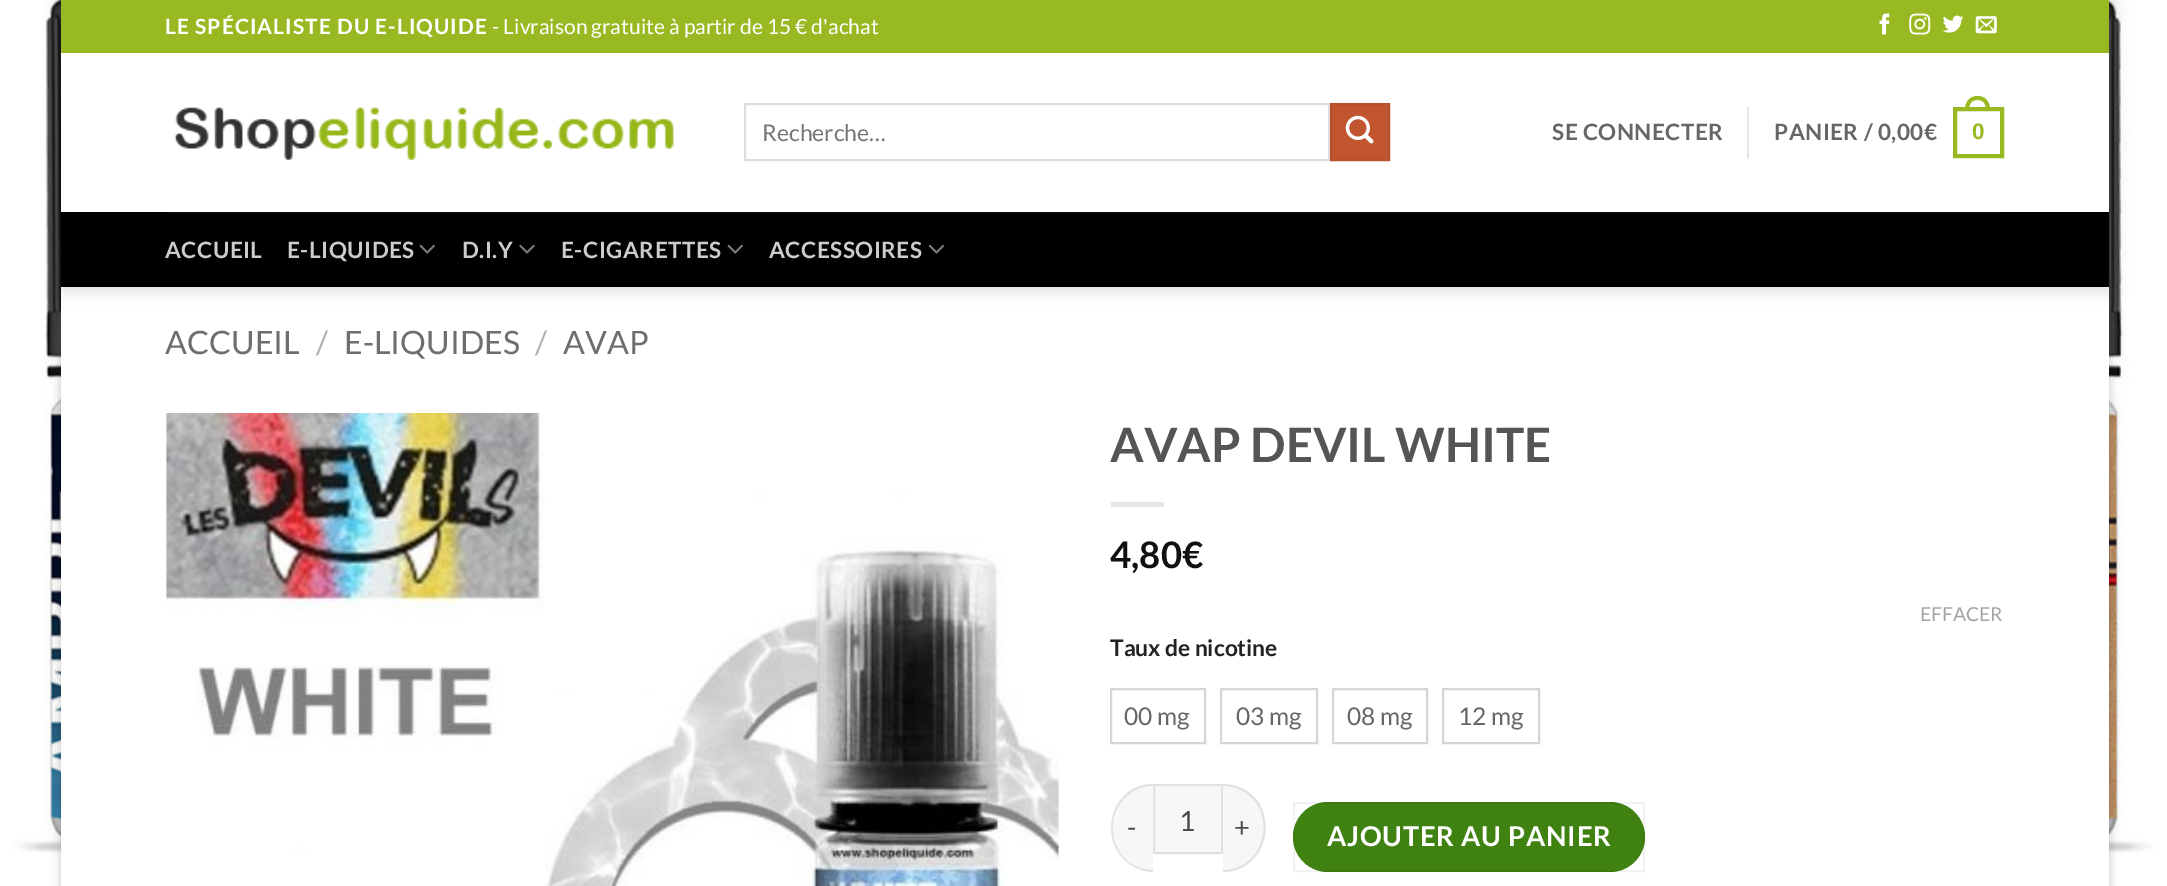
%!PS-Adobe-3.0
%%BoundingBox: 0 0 2167 886
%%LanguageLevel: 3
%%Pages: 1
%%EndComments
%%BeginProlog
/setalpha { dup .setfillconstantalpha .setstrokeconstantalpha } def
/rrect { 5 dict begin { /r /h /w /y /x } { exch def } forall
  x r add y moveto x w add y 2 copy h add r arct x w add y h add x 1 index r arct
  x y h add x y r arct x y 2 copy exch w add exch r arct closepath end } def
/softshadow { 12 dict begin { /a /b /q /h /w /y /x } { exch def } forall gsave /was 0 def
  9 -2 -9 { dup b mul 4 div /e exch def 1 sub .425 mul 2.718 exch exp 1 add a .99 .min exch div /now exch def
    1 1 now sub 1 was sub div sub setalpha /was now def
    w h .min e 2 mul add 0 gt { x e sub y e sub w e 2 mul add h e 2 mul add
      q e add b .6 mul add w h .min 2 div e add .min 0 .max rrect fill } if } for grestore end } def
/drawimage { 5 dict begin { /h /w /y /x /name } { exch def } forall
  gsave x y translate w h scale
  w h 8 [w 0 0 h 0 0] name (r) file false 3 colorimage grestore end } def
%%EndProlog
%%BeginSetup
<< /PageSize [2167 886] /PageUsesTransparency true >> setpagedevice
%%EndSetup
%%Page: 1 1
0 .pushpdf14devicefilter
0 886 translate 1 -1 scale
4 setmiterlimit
1 setgray
0 0 2167 886 rectfill
(images/1.raw) 13 0 2140 854 drawimage
0 setgray
61 5 2048 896 0 5 0.23 softshadow
1 setgray
61 53 2048 833 rectfill
gsave
newpath 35 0 moveto 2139 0 lineto 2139 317 lineto 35 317 lineto closepath 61 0 moveto 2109 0 lineto 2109 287 lineto 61 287 lineto closepath eoclip newpath
0 setgray
63 2 2048 287 0 9 0.15 softshadow
grestore
0.596 0.725 0.129 setrgbcolor
61 0 2048 53 rectfill
(images/2.raw) 1879 13 11 22 drawimage
(images/3.raw) 1909 13 22 22 drawimage
(images/4.raw) 1942 15 22 18 drawimage
(images/5.raw) 1975 16 22 18 drawimage
0.9 setalpha
1 setgray
61 53 2048 159 rectfill
1 setalpha
(images/6.raw) 174 107 500 53 drawimage
0.867 setgray
2 setlinewidth
745 104 584 56 rectstroke
0.753 0.333 0.188 setrgbcolor
newpath 1331 104 moveto 1389 104 lineto 1389 160 lineto 1331 160 lineto closepath gsave fill grestore
0.714 0.318 0.18 setrgbcolor
stroke
(images/7.raw) 1345 115 29 29 drawimage
0.902 setgray
1747 107 2 52 rectfill
0.596 0.725 0.129 setrgbcolor
4 setlinewidth
1955 109 47 47 rectstroke
newpath 1977.5 96 moveto 1986 96 1990 102.5 1990 110 curveto 1965 110 lineto 1965 102.5 1969 96 1977.5 96 curveto closepath 1977.5 100 moveto 1984 100 1986 104.5 1986 110 curveto 1969 110 lineto 1969 104.5 1971 100 1977.5 100 curveto closepath eofill
0 setgray
61 212 2048 75 rectfill
0.027 setgray
166 212 1838 2 rectfill
(images/8.raw) 419 244 16 10 drawimage
(images/9.raw) 519 244 16 10 drawimage
(images/8.raw) 727 244 16 10 drawimage
(images/10.raw) 928 244 17 10 drawimage
(images/11.raw) 166 413 893 473 drawimage
0.902 setgray
1111 502 53 5 rectfill
0.835 setgray
2 setlinewidth
1111 689 94 54 rectstroke
1221 689 96 54 rectstroke
1333 689 94 54 rectstroke
1443 689 96 54 rectstroke
0.969 setgray
newpath 1153 784 moveto 1153 872 lineto 1130 872 1111 853 1111 830 curveto 1111 826 lineto 1111 803 1130 784 1153 784 curveto closepath fill
0.09 setalpha
0 setgray
newpath 1153 784 moveto 1153 872 lineto 1145 872 1137 869 1130 864 curveto 1096 841 1111 784 1153 784 curveto closepath 1153 786 moveto 1153 870 lineto 1112 870 1098 815 1131 793 curveto 1137 788 1145 786 1153 786 curveto closepath eofill
1 setalpha
0.969 setgray
newpath 1154 785 moveto 1222 785 lineto 1222 853 lineto 1154 853 lineto closepath gsave fill grestore
0.882 setgray
stroke
0.969 setgray
newpath 1223 784 moveto 1246 784 1265 803 1265 826 curveto 1265 830 lineto 1265 853 1246 872 1223 872 curveto closepath fill
0.09 setalpha
0 setgray
newpath 1223 784 moveto 1232 784 1240 787 1247 791 curveto 1281 814 1266 872 1223 872 curveto closepath 1223 786 moveto 1231 786 1239 788 1246 793 curveto 1278 815 1264 870 1223 870 curveto closepath eofill
1 setalpha
0.251 0.51 0.067 setrgbcolor
1293 802 352 70 35 rrect fill
0.05 setalpha
0 setgray
1294 803 350 68 rectstroke
/Lato-Bold [21 0 0 -21 0 0] selectfont
1 setalpha
1 setgray
165 34 moveto 1.05 0 (LE SPÉCIALISTE DU E-LIQUIDE) ashow
/Lato-Regular [21 0 0 -21 0 0] selectfont
492 34 moveto (- Livraison gratuite à partir de 15 € d'achat) show
/Lato-Regular [23 0 0 -23 0 0] selectfont
0.459 setgray
762 141 moveto (Recherche…) show
/Lato-Bold [22.5 0 0 -22.5 0 0] selectfont
0.4 setgray
1552 140 moveto 0.5 0 (SE CONNECTER) ashow
1774 140 moveto 0.5 0 (PANIER / 0,00€) ashow
/LiberationSans-Bold [22.5 0 0 -22.5 0 0] selectfont
0.596 0.725 0.129 setrgbcolor
1972 139 moveto 0.5 0 (0) ashow
/Lato-Bold [22.5 0 0 -22.5 0 0] selectfont
0.8 setgray
165 258 moveto 0.5 0 (ACCUEIL) ashow
287 258 moveto 0.5 0 (E-LIQUIDES) ashow
462 258 moveto 0.5 0 (D.I.Y) ashow
561 258 moveto 0.5 0 (E-CIGARETTES) ashow
769 258 moveto 0.5 0 (ACCESSOIRES) ashow
/Lato-Regular [32.25 0 0 -32.25 0 0] selectfont
0.431 setgray
165 354 moveto (ACCUEIL) show
0.698 setgray
316 354 moveto (/) show
0.431 setgray
344 354 moveto (E-LIQUIDES) show
0.698 setgray
535 354 moveto (/) show
0.431 setgray
563 354 moveto (AVAP) show
/Lato-Bold [47.5 0 0 -47.5 0 0] selectfont
0.333 setgray
1110 462 moveto (AVAP DEVIL WHITE) show
/Lato-Bold [36.5 0 0 -36.5 0 0] selectfont
0.067 setgray
1110 568 moveto (4,80€) show
/Lato-Regular [19.25 0 0 -19.25 0 0] selectfont
0.639 setgray
1920 621 moveto (EFFACER) show
/Lato-Regular [24.5 0 0 -24.5 0 0] selectfont
0.4 setgray
1124 725 moveto (00 mg) show
1236 725 moveto (03 mg) show
1347 725 moveto (08 mg) show
1458 725 moveto (12 mg) show
/Lato-Bold [22.75 0 0 -22.75 0 0] selectfont
0.133 setgray
1110 656 moveto (Taux de nicotine) show
/Lato-Regular [27.25 0 0 -27.25 0 0] selectfont
0.29 setgray
1127 837 moveto 0.8 0 (-) ashow
/Lato-Regular [28 0 0 -28 0 0] selectfont
1179 831 moveto (1) show
/Lato-Regular [27.25 0 0 -27.25 0 0] selectfont
1234 837 moveto 0.8 0 (+) ashow
/Lato-Bold [27.25 0 0 -27.25 0 0] selectfont
1 setgray
1327 846 moveto 0.8 0 (AJOUTER AU PANIER) ashow
.poppdf14devicefilter showpage
%%EOF
